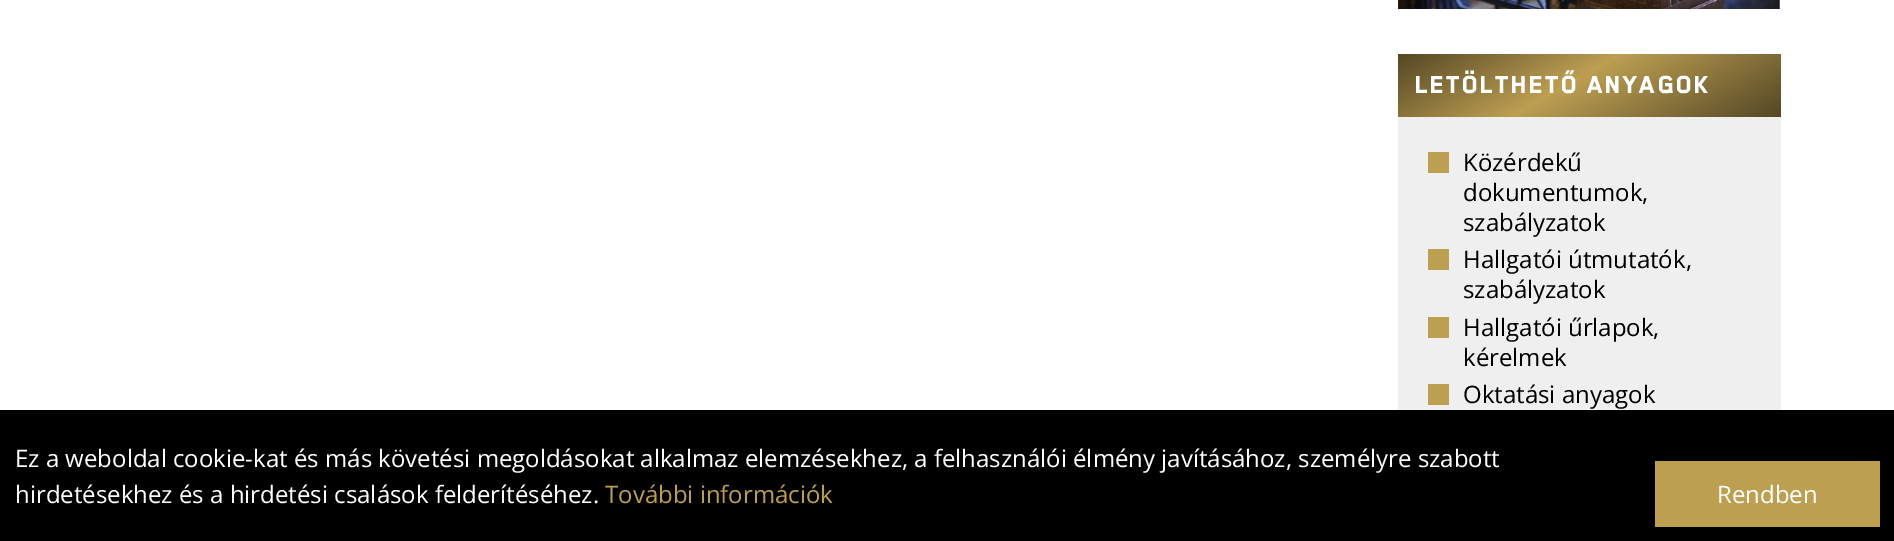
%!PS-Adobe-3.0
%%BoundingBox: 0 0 1894 541
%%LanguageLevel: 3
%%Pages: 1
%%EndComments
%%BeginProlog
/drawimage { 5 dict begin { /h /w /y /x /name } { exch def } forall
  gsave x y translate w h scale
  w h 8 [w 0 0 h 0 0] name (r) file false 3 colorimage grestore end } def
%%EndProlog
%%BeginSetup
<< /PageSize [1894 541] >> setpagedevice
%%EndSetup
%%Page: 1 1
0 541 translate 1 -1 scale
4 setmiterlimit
1 setgray
0 0 1894 541 rectfill
(images/1.raw) 1398 0 382 9 drawimage
gsave newpath 1398 54 moveto 1781 54 lineto 1781 117 lineto 1398 117 lineto closepath clip newpath
<< /ShadingType 2 /ColorSpace /DeviceRGB /Coords [1528 -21 1651 192] /Extend [true true] /Function << /FunctionType 3 /Domain [0 1] /Functions [<< /FunctionType 2 /Domain [0 1] /C0 [0.333 0.278 0.145] /C1 [0.741 0.624 0.322] /N 1 >> << /FunctionType 2 /Domain [0 1] /C0 [0.741 0.624 0.322] /C1 [0.333 0.278 0.145] /N 1 >>] /Bounds [0.45] /Encode [0 1 0 1] >> >> shfill grestore
0.937 setgray
1398 117 383 293 rectfill
0.741 0.624 0.322 setrgbcolor
1428 152 21 21 rectfill
1428 249 21 21 rectfill
1428 317 21 21 rectfill
1428 384 21 21 rectfill
0 setgray
0 410 1894 131 rectfill
0.741 0.624 0.322 setrgbcolor
1655 461 225 66 rectfill
/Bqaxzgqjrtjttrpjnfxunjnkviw-Black [28.5 0 0 -28.5 0 0] selectfont
1 setgray
1415 93 moveto 1.5 0 (LETÖLTHETŐ ANYAGOK) ashow
/OpenSans-Regular [24 0 0 -24 0 0] selectfont
0 setgray
1463 171 moveto (Közérdekű) show
1463 201 moveto (dokumentumok,) show
1463 231 moveto (szabályzatok) show
1463 268 moveto (Hallgatói útmutatók,) show
1463 298 moveto (szabályzatok) show
1463 336 moveto (Hallgatói űrlapok,) show
1463 366 moveto (kérelmek) show
1463 403 moveto (Oktatási anyagok) show
1 setgray
15 467 moveto (Ez a weboldal cookie-kat és más követési megoldásokat alkalmaz elemzésekhez, a felhasználói élmény javításához, személyre szabott) show
15 503 moveto (hirdetésekhez és a hirdetési csalások felderítéséhez.) show
0.741 0.624 0.322 setrgbcolor
605 503 moveto (További információk) show
1 setgray
1717 503 moveto (Rendben) show
showpage
%%EOF
